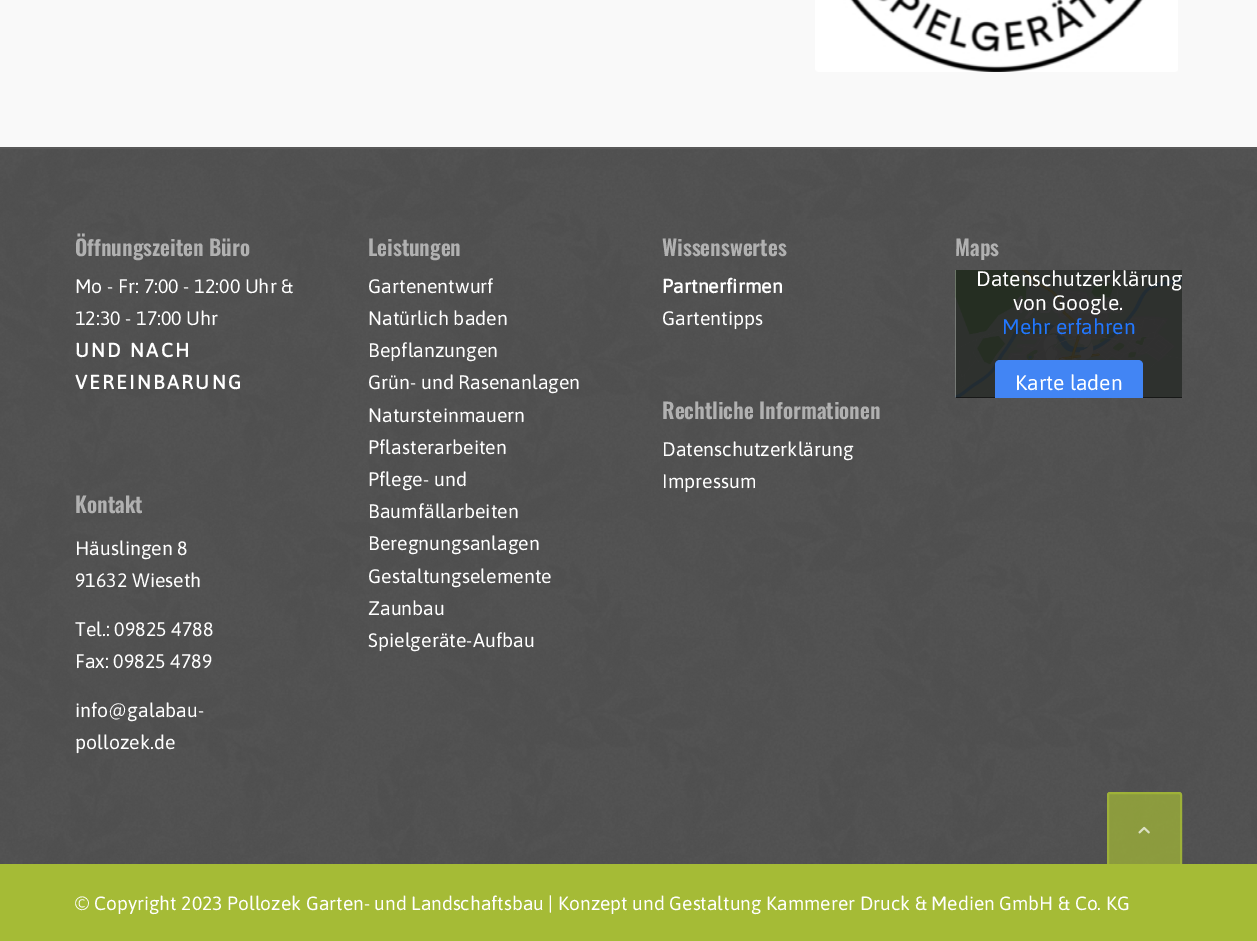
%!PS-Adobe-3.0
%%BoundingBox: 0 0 1257 941
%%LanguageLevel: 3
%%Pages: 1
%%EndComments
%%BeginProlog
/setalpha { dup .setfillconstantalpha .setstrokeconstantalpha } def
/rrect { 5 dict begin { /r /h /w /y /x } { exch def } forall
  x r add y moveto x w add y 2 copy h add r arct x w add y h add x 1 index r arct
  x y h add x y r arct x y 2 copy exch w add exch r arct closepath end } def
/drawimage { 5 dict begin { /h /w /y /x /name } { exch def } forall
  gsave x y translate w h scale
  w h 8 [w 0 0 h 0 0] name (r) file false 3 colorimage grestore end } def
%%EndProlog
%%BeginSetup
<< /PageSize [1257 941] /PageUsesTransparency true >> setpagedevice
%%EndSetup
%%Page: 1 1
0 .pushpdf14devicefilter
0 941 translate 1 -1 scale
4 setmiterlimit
0.976 setgray
0 0 1257 941 rectfill
(images/1.raw) 815 0 363 72 drawimage
0.345 setgray
0 147 1257 717 rectfill
(images/2.raw) 0 149 1257 715 drawimage
(images/3.raw) 955 270 227 128 drawimage
0.8 setalpha
0 setgray
956 270 226 128 rectfill
1 setalpha
0.259 0.522 0.957 setrgbcolor
newpath 1000 360 moveto 1138 360 lineto 1141 360 1143 362 1143 365 curveto 1143 398 lineto 995 398 lineto 995 365 lineto 995 362 997 360 1000 360 curveto closepath fill
0.647 0.733 0.212 setrgbcolor
0 864 1257 77 rectfill
0.7 setalpha
1107 792 75 75 3 rrect fill
2 setlinewidth
1108 793 73 73 2 rrect stroke
1 setalpha
(images/4.raw) 1138 826 12 8 drawimage
/Oswald-SemiBold [21.5 0 0 -21.5 0 0] selectfont
0.694 setgray
75 256 moveto (Öffnungszeiten Büro) show
/Asap-Regular [19.5 0 0 -19.5 0 0] selectfont
1 setgray
75 293 moveto (Mo - Fr: 7:00 - 12:00 Uhr &) show
75 325 moveto (12:30 - 17:00 Uhr) show
/Asap-Bold [19.5 0 0 -19.5 0 0] selectfont
75 357 moveto 2.25 0 (UND NACH) ashow
75 389 moveto 2.25 0 (VEREINBARUNG) ashow
/Oswald-SemiBold [21.5 0 0 -21.5 0 0] selectfont
0.694 setgray
75 513 moveto (Kontakt) show
/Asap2-Regular [19.5 0 0 -19.5 0 0] selectfont
1 setgray
75 555 moveto (Häuslingen 8) show
75 587 moveto (91632 Wieseth) show
75 636 moveto (Tel.: 09825 4788) show
75 668 moveto (Fax: 09825 4789) show
75 717 moveto (info@galabau-) show
75 749 moveto (pollozek.de) show
/Oswald-SemiBold [21.5 0 0 -21.5 0 0] selectfont
0.694 setgray
368 256 moveto (Leistungen) show
/Asap-Regular [19.5 0 0 -19.5 0 0] selectfont
1 setgray
368 293 moveto (Gartenentwurf) show
368 325 moveto (Natürlich baden) show
368 357 moveto (Bepflanzungen) show
368 389 moveto (Grün- und Rasenanlagen) show
368 422 moveto (Natursteinmauern) show
368 454 moveto (Pflasterarbeiten) show
368 486 moveto (Pflege- und) show
368 518 moveto (Baumfällarbeiten) show
368 550 moveto (Beregnungsanlagen) show
368 583 moveto (Gestaltungselemente) show
368 615 moveto (Zaunbau) show
368 647 moveto (Spielgeräte-Aufbau) show
/Oswald-SemiBold [21.5 0 0 -21.5 0 0] selectfont
0.694 setgray
662 256 moveto (Wissenswertes) show
/Asap-Bold [19.5 0 0 -19.5 0 0] selectfont
1 setgray
662 293 moveto (Partnerfirmen) show
/Asap-Regular [19.5 0 0 -19.5 0 0] selectfont
662 325 moveto (Gartentipps) show
/Oswald-SemiBold [21.5 0 0 -21.5 0 0] selectfont
0.694 setgray
662 419 moveto (Rechtliche Informationen) show
/Asap-Regular [19.5 0 0 -19.5 0 0] selectfont
1 setgray
662 456 moveto (Datenschutzerklärung) show
662 488 moveto (Impressum) show
/Oswald-SemiBold [21.5 0 0 -21.5 0 0] selectfont
0.694 setgray
955 256 moveto (Maps) show
/Asap-Regular [21 0 0 -21 0 0] selectfont
1 setgray
976 286 moveto (Datenschutzerklärung) show
1013 310 moveto (von Google.) show
0.133 0.467 1 setrgbcolor
1002 334 moveto (Mehr erfahren) show
1 setgray
1015 390 moveto (Karte laden) show
/Asap-Regular [19.2 0 0 -19.2 0 0] selectfont
75 910 moveto (© Copyright 2023 Pollozek Garten- und Landschaftsbau | Konzept und Gestaltung Kammerer Druck & Medien GmbH & Co. KG) show
.poppdf14devicefilter showpage
%%EOF
